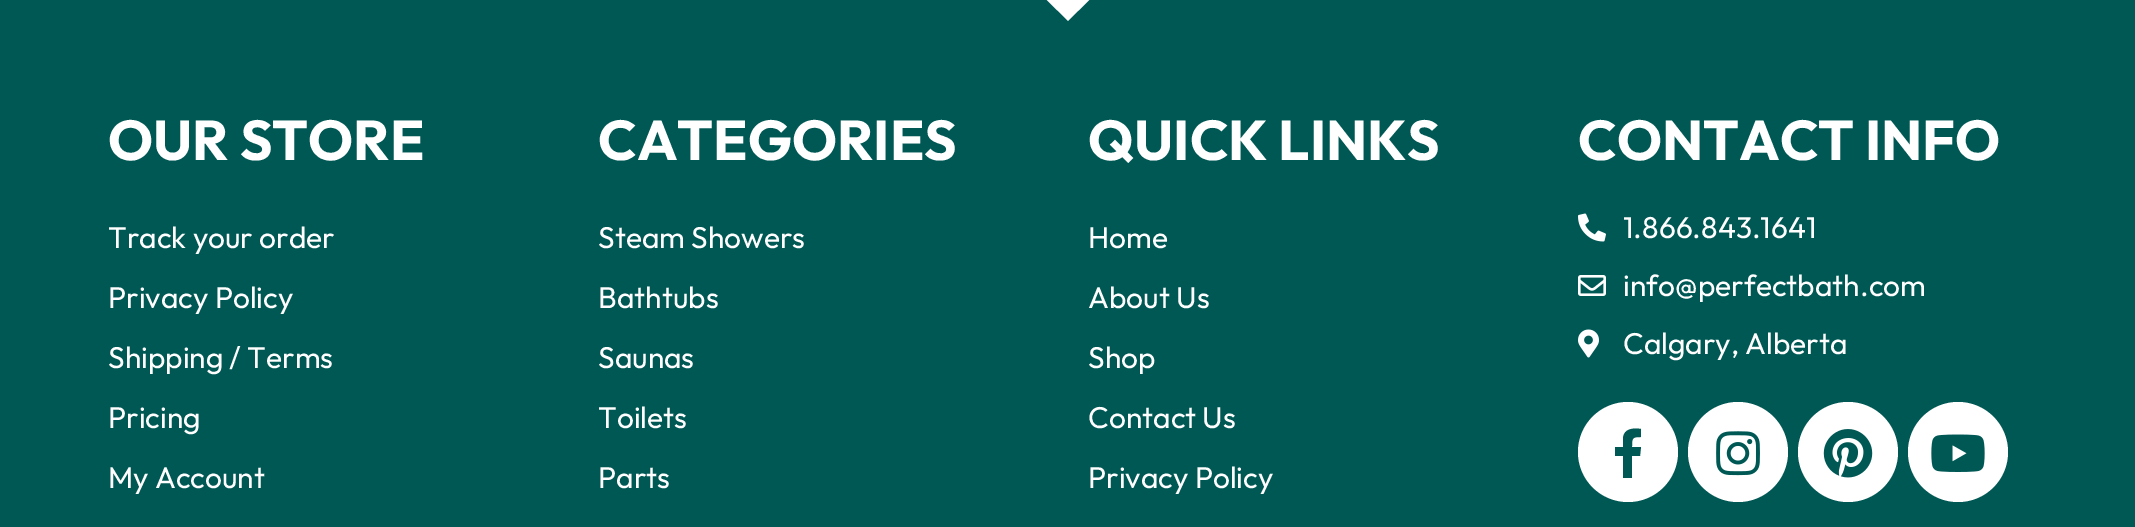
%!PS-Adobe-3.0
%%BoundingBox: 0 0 2135 527
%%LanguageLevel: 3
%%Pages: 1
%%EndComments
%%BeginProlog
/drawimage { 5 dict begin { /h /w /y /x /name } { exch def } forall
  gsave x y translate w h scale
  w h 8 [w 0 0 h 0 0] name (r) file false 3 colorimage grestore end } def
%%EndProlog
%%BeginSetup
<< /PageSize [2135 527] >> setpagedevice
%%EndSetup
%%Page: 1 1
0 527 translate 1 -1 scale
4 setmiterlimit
0 0.345 0.333 setrgbcolor
0 0 2135 527 rectfill
1 setgray
newpath 1068 21 moveto 1037 -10 lineto 1099 -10 lineto closepath fill
(images/1.raw) 1578 213 28 29 drawimage
(images/2.raw) 1578 275 28 21 drawimage
(images/3.raw) 1578 329 21 29 drawimage
newpath 1628 452 50 0 360 arc closepath fill
0 0.345 0.333 setrgbcolor
newpath 1640 456 moveto 1632 456 lineto 1632 478 lineto 1623 478 lineto 1623 456 lineto 1615 456 lineto 1615 447 lineto 1623 447 lineto 1623 438 lineto 1624 428 1634 428 1641 429 curveto 1641 437 lineto 1632 437 1632 438 1632 447 curveto 1641 447 lineto closepath fill
1 setgray
newpath 1738 452 50 0 360 arc closepath fill
(images/4.raw) 1716 431 44 45 drawimage
newpath 1848 452 50 0 360 arc closepath fill
(images/5.raw) 1823 429 50 49 drawimage
newpath 1958 452 50 0 360 arc closepath fill
(images/6.raw) 1931 434 54 38 drawimage
/Outfit-Bold [56 0 0 -56 0 0] selectfont
108 160 moveto (OUR STORE) show
/Outfit-Regular [30 0 0 -30 0 0] selectfont
108 248 moveto (Track your order) show
108 308 moveto (Privacy Policy) show
108 368 moveto (Shipping / Terms) show
108 428 moveto (Pricing) show
108 488 moveto (My Account) show
/Outfit-Bold [56 0 0 -56 0 0] selectfont
598 160 moveto (CATEGORIES) show
/Outfit-Regular [30 0 0 -30 0 0] selectfont
598 248 moveto (Steam Showers) show
598 308 moveto (Bathtubs) show
598 368 moveto (Saunas) show
598 428 moveto (Toilets) show
598 488 moveto (Parts) show
/Outfit-Bold [56 0 0 -56 0 0] selectfont
1088 160 moveto (QUICK LINKS) show
/Outfit-Regular [30 0 0 -30 0 0] selectfont
1088 248 moveto (Home) show
1088 308 moveto (About Us) show
1088 368 moveto (Shop) show
1088 428 moveto (Contact Us) show
1088 488 moveto (Privacy Policy) show
/Outfit-Bold [56 0 0 -56 0 0] selectfont
1578 160 moveto (CONTACT INFO) show
/Outfit-Regular [30 0 0 -30 0 0] selectfont
1623 238 moveto (1.866.843.1641) show
1623 296 moveto (info@perfectbath.com) show
1623 354 moveto (Calgary, Alberta) show
showpage
%%EOF
